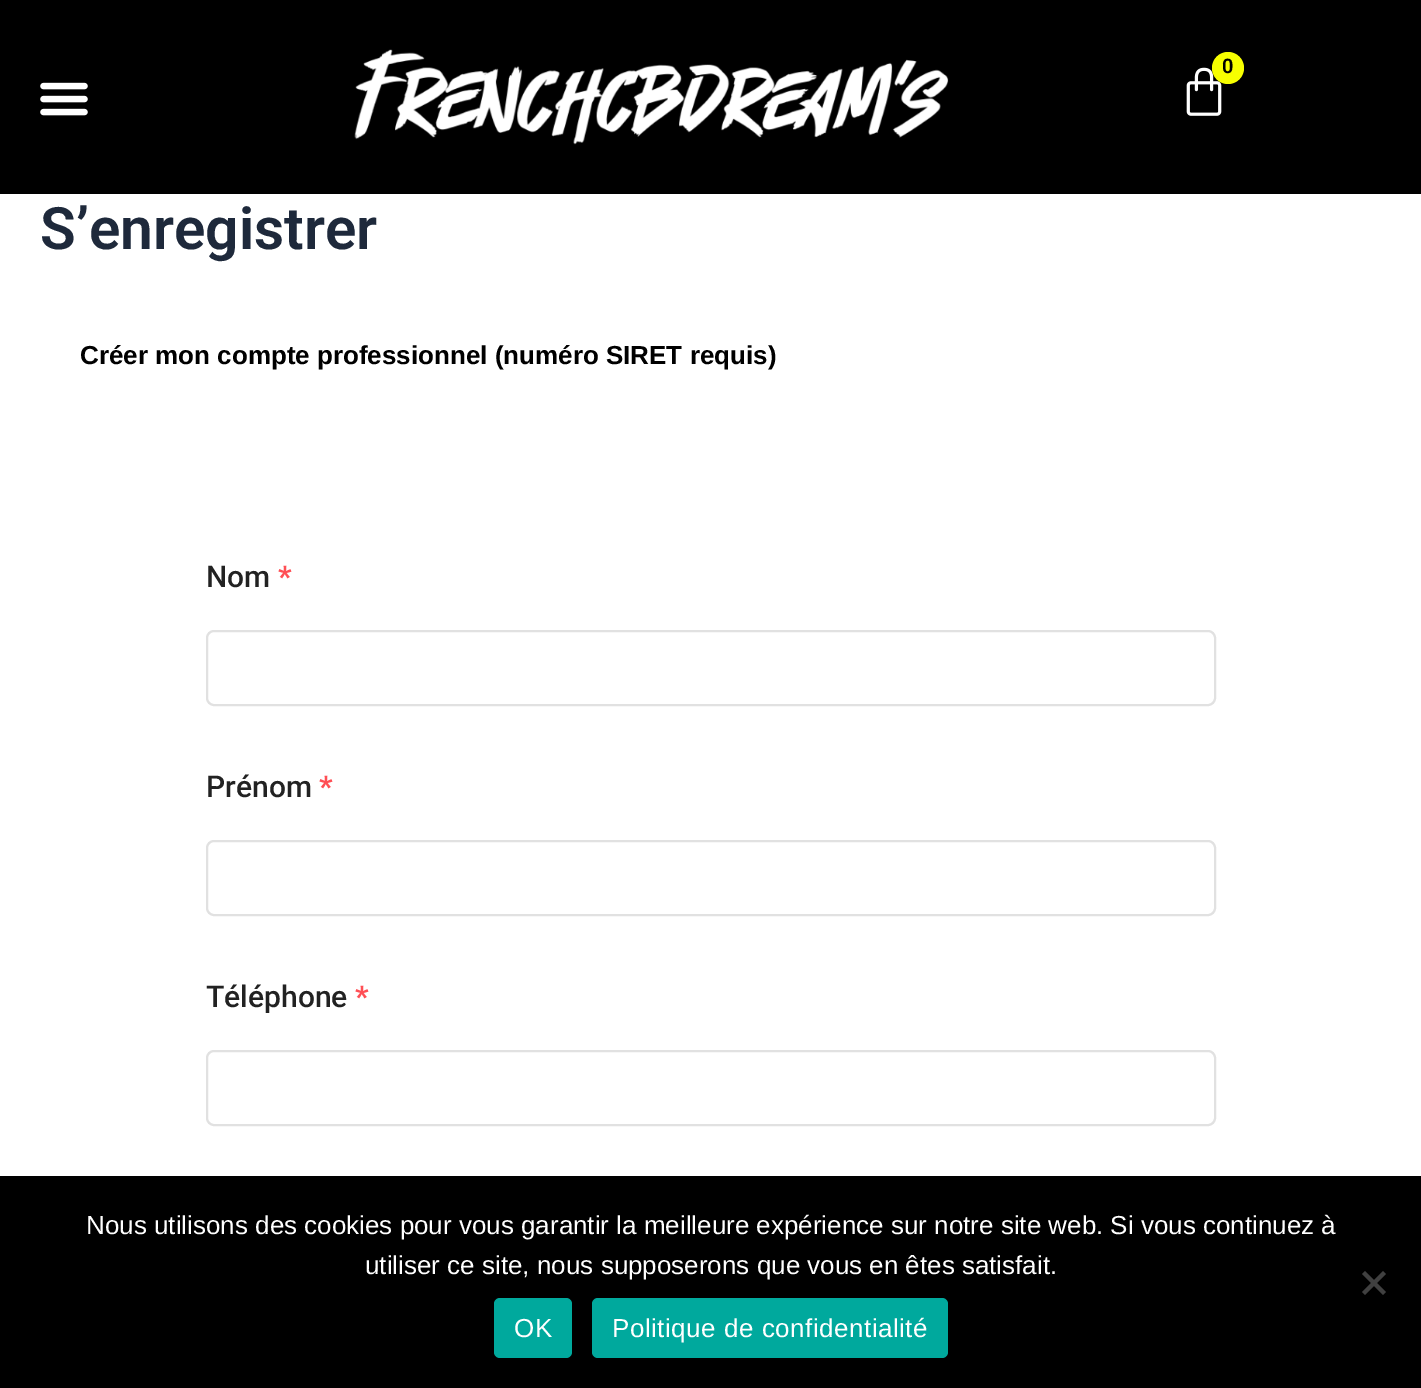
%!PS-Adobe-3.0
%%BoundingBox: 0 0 1421 1388
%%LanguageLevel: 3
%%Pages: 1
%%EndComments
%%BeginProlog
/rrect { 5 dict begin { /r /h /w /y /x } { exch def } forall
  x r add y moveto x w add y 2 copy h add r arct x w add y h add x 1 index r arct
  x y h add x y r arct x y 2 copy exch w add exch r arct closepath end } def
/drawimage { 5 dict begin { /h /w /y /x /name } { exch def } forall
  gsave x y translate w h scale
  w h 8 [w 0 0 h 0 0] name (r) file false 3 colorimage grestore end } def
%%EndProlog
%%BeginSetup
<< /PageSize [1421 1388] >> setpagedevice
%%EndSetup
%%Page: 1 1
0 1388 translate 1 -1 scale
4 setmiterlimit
1 setgray
0 0 1421 1388 rectfill
0 setgray
0 0 1421 194 rectfill
(images/1.raw) 354 49 595 96 drawimage
(images/2.raw) 1186 67 36 49 drawimage
0.969 1 0 setrgbcolor
newpath 1228 68 16 0 360 arc closepath fill
(images/3.raw) 40 82 48 34 drawimage
0.882 setgray
2 setlinewidth
207 631 1008 74 7 rrect stroke
207 841 1008 74 7 rrect stroke
207 1051 1008 74 7 rrect stroke
0 setgray
0 1176 1421 212 rectfill
0.251 setgray
newpath 1383 1271 moveto 1386 1274 lineto 1365 1295 lineto 1362 1292 lineto closepath fill
newpath 1362 1274 moveto 1365 1271 lineto 1386 1292 lineto 1383 1295 lineto closepath fill
0 0.663 0.616 setrgbcolor
494 1298 78 60 6 rrect fill
592 1298 356 60 6 rrect fill
/Roboto-SemiBold [20 0 0 -20 0 0] selectfont
0 setgray
1222 73 moveto (0) show
/Roboto-SemiBold [58.5 0 0 -58.5 0 0] selectfont
0.118 0.161 0.231 setrgbcolor
40 249 moveto (S’enregistrer) show
/LiberationSans-Bold [26 0 0 -26 0 0] selectfont
0 setgray
80 364 moveto (Créer mon compte professionnel \(numéro SIRET requis\)) show
/Roboto-Medium [30 0 0 -30 0 0] selectfont
0.133 setgray
206 587 moveto (Nom) show
/Roboto-Bold [30 0 0 -30 0 0] selectfont
1 0.31 0.333 setrgbcolor
278 587 moveto (*) show
/Roboto-Medium [30 0 0 -30 0 0] selectfont
0.133 setgray
206 797 moveto (Prénom) show
/Roboto-Bold [30 0 0 -30 0 0] selectfont
1 0.31 0.333 setrgbcolor
319 797 moveto (*) show
/Roboto-Medium [30 0 0 -30 0 0] selectfont
0.133 setgray
206 1007 moveto (Téléphone) show
/Roboto-Bold [30 0 0 -30 0 0] selectfont
1 0.31 0.333 setrgbcolor
355 1007 moveto (*) show
/LiberationSans-Regular [26 0 0 -26 0 0] selectfont
1 setgray
86 1234 moveto (Nous utilisons des cookies pour vous garantir la meilleure expérience sur notre site web. Si vous continuez à) show
365 1274 moveto (utiliser ce site, nous supposerons que vous en êtes satisfait.) show
514 1337 moveto 0.5 0 (OK) ashow
612 1337 moveto 0.5 0 (Politique de confidentialité) ashow
showpage
%%EOF
